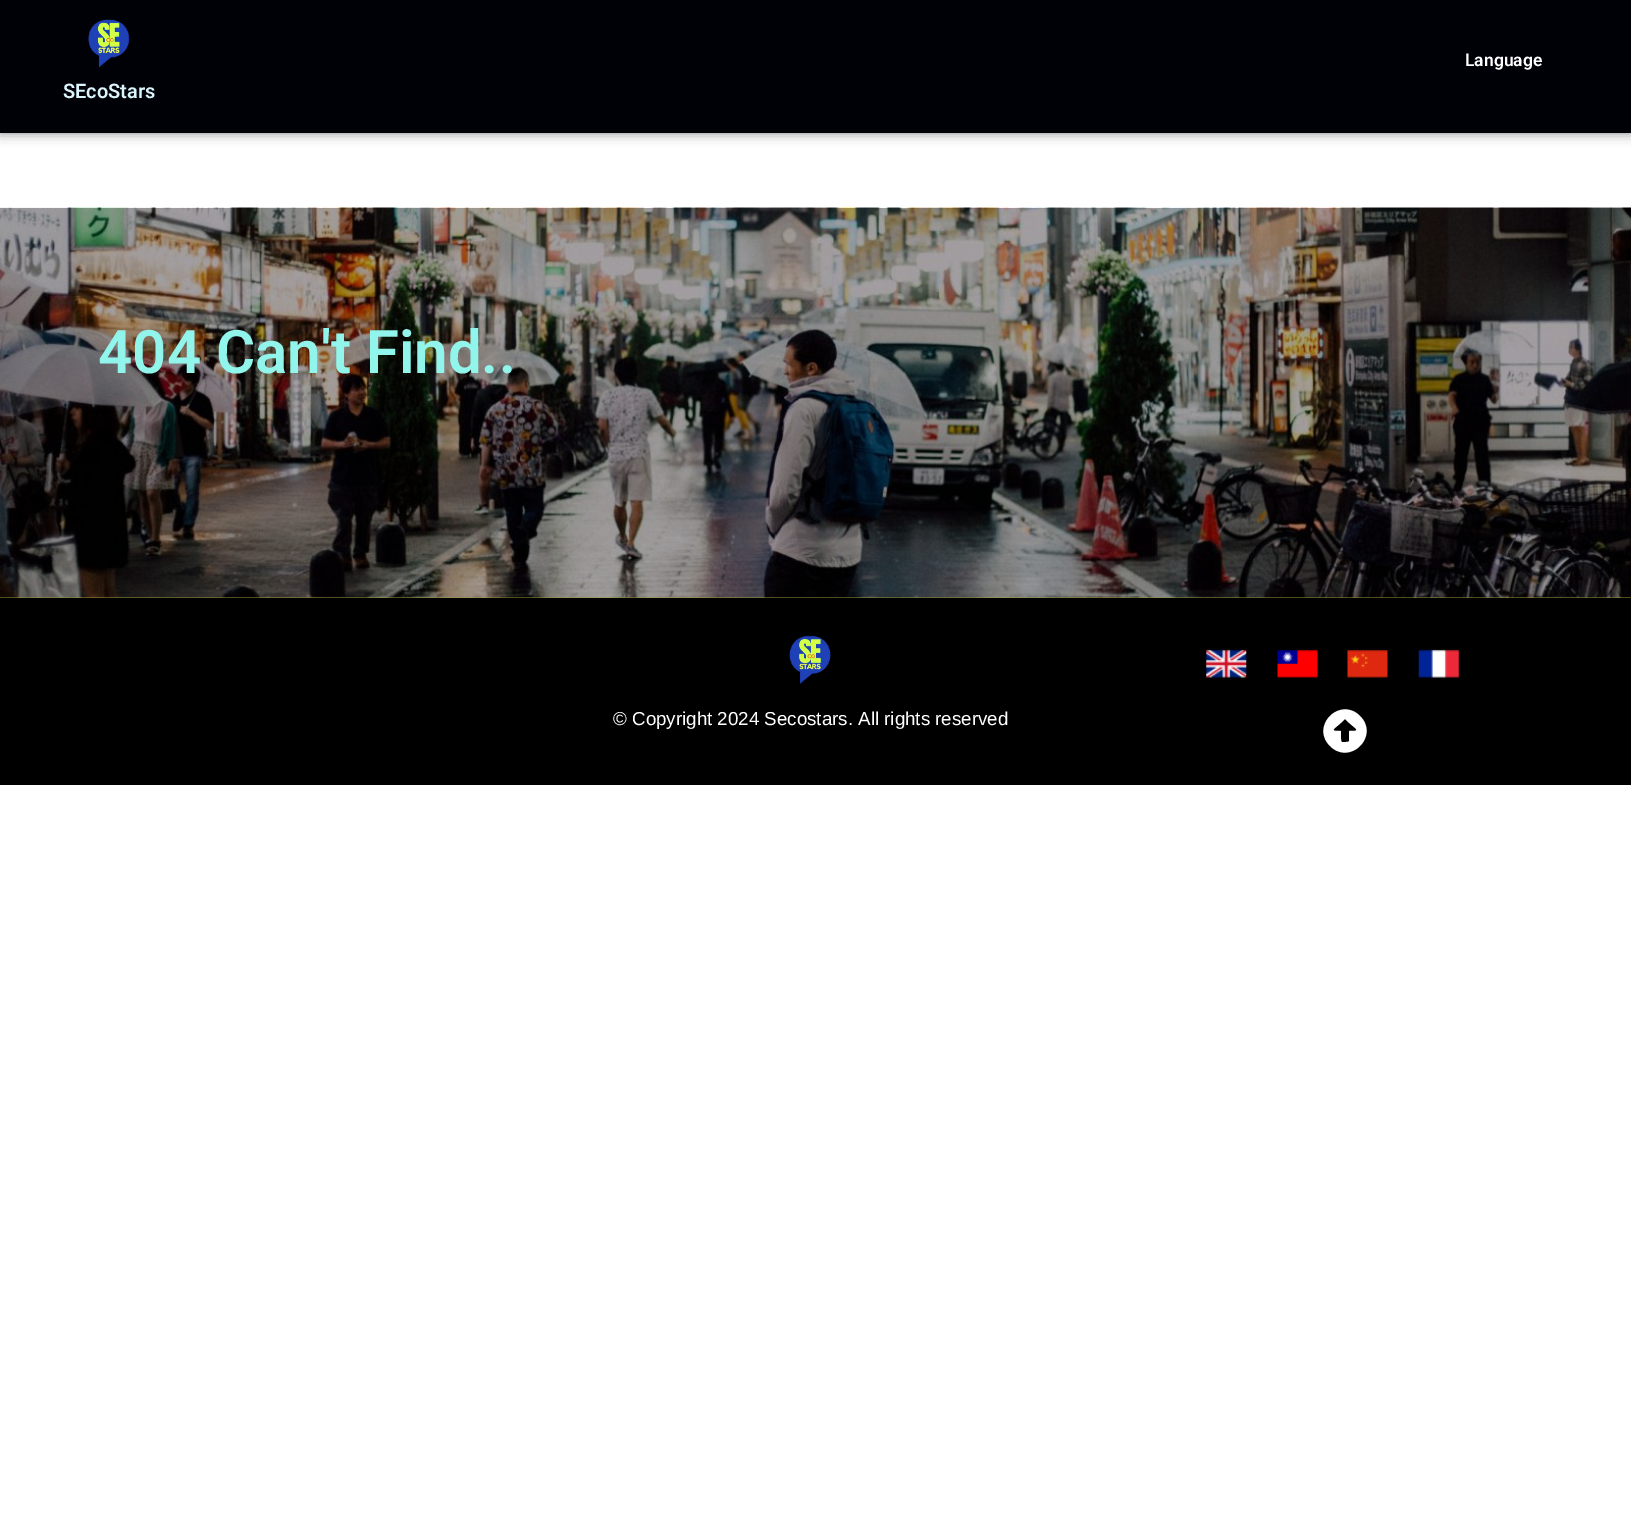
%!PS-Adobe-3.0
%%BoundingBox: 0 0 1631 1524
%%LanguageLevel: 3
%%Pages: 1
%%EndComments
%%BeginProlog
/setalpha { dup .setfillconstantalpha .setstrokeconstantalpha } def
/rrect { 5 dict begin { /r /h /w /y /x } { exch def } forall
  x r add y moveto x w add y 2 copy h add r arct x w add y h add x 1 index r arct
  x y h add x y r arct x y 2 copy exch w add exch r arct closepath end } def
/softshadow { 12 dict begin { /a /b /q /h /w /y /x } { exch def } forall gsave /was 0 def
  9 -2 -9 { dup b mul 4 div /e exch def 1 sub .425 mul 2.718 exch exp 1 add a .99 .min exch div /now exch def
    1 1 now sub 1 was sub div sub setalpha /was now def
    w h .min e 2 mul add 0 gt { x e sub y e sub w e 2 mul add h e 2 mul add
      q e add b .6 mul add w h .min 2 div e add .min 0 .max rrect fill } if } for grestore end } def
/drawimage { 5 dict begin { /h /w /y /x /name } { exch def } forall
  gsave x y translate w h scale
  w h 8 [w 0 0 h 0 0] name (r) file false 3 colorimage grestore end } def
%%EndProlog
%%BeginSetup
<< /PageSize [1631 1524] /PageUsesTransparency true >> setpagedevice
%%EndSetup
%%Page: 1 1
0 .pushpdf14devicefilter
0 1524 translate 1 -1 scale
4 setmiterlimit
1 setgray
0 0 1631 1524 rectfill
0 setgray
0 0 1631 133 0 6 0.5 softshadow
0 0 0.027 setrgbcolor
0 0 1631 133 rectfill
(images/1.raw) 88 19 42 49 drawimage
0.612 0.604 0.2 setrgbcolor
0 597 1631 1 rectfill
(images/2.raw) 0 207 1631 391 drawimage
0 setgray
0 598 1631 187 rectfill
(images/3.raw) 789 635 42 49 drawimage
(images/4.raw) 1206 649 41 29 drawimage
(images/5.raw) 1277 649 41 29 drawimage
(images/6.raw) 1347 649 41 29 drawimage
(images/7.raw) 1418 649 41 29 drawimage
1 setgray
newpath 1330 746 moveto 1310 726 1340 696 1360 716 curveto 1380 736 1350 766 1330 746 curveto closepath 1349 741 moveto 1349 731 lineto 1361 731 1357 730 1347 721 curveto 1345 719 lineto 1343 721 lineto 1333 730 1329 731 1341 731 curveto 1341 739 lineto 1341 743 1342 742 1346 742 curveto 1347 742 1349 742 1349 741 curveto closepath fill
/Roboto-SemiBold [17.5 0 0 -17.5 0 0] selectfont
1465 66 moveto (Language) show
/Roboto-SemiBold [20 0 0 -20 0 0] selectfont
0.859 0.961 0.992 setrgbcolor
63 98 moveto (SEcoStars) show
/Roboto-SemiBold [60 0 0 -60 0 0] selectfont
0.569 0.961 0.922 setrgbcolor
98 373 moveto (404 Can't Find..) show
/LiberationSans-Regular [18.75 0 0 -18.75 0 0] selectfont
1 setgray
613 725 moveto (© Copyright 2024 Secostars. All rights reserved) show
.poppdf14devicefilter showpage
%%EOF
